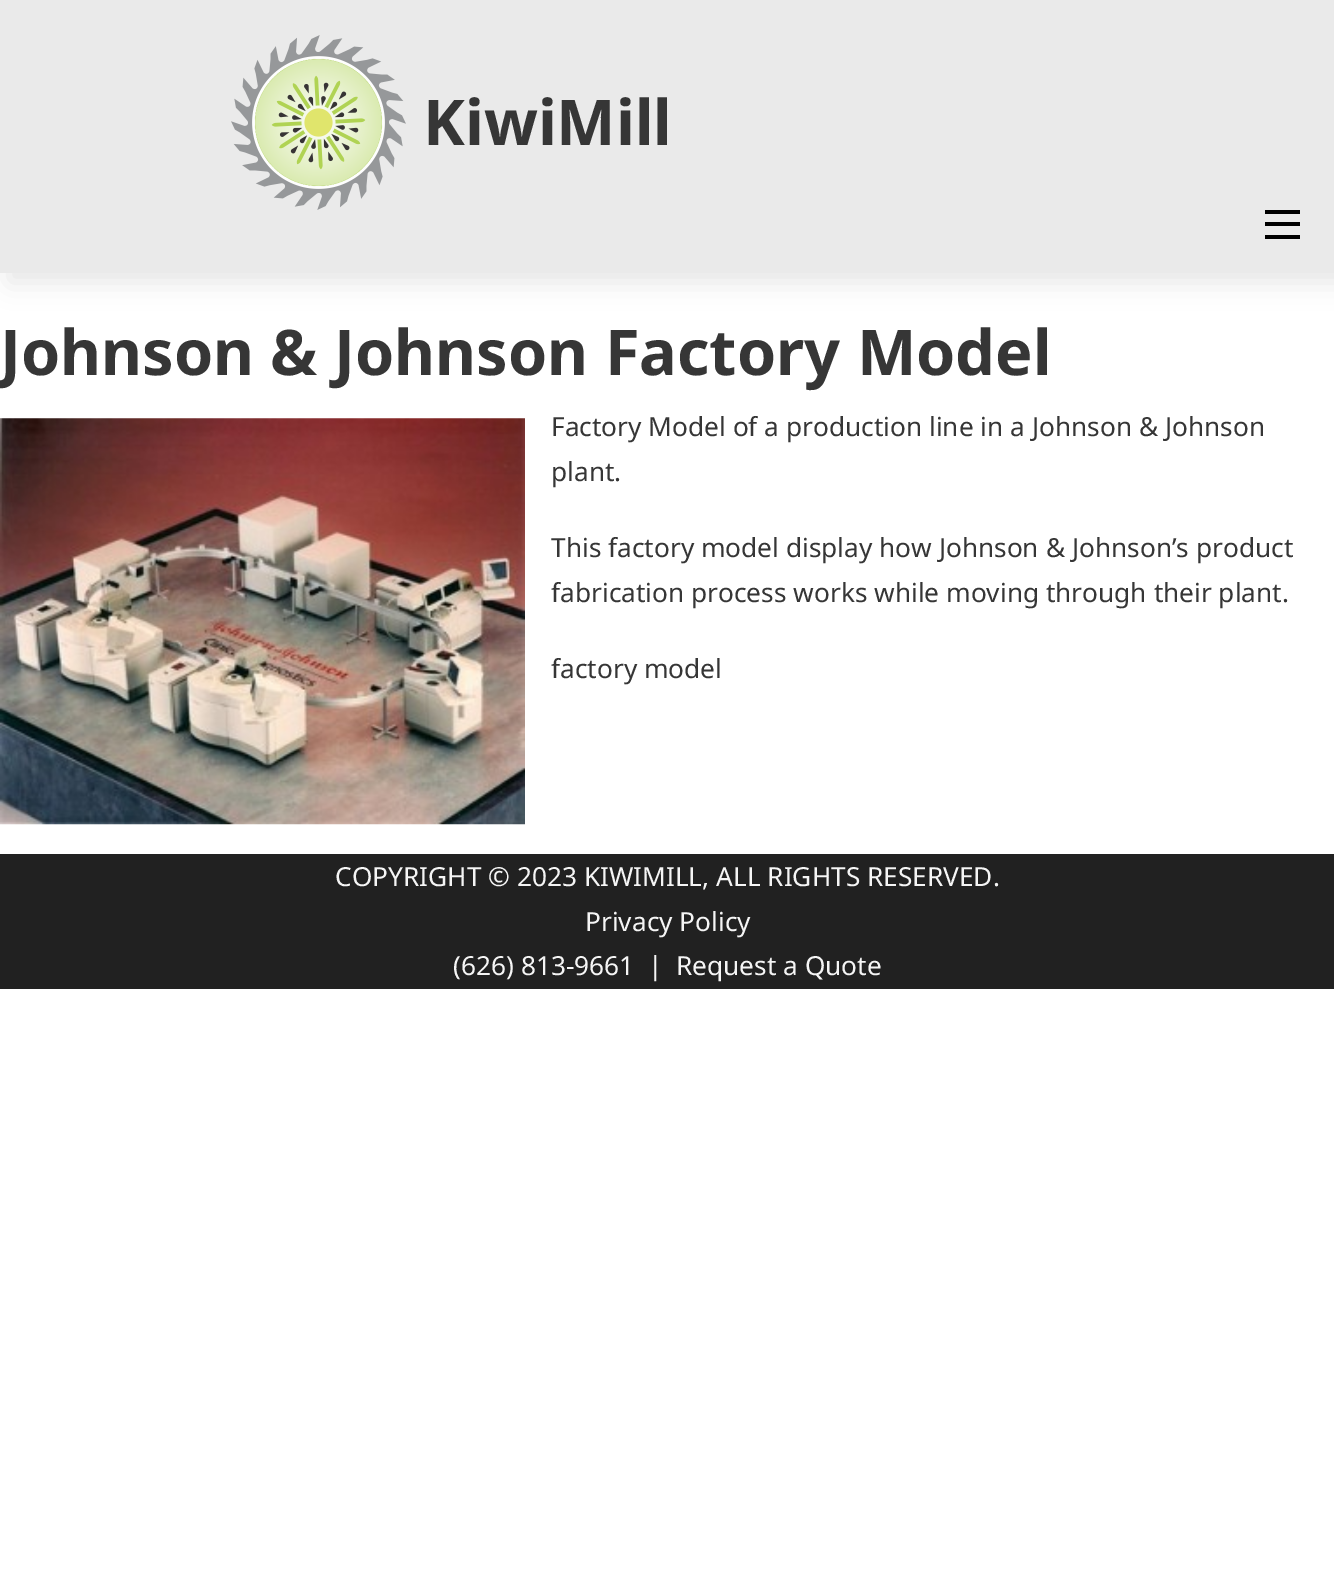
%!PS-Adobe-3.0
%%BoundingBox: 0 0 1334 1576
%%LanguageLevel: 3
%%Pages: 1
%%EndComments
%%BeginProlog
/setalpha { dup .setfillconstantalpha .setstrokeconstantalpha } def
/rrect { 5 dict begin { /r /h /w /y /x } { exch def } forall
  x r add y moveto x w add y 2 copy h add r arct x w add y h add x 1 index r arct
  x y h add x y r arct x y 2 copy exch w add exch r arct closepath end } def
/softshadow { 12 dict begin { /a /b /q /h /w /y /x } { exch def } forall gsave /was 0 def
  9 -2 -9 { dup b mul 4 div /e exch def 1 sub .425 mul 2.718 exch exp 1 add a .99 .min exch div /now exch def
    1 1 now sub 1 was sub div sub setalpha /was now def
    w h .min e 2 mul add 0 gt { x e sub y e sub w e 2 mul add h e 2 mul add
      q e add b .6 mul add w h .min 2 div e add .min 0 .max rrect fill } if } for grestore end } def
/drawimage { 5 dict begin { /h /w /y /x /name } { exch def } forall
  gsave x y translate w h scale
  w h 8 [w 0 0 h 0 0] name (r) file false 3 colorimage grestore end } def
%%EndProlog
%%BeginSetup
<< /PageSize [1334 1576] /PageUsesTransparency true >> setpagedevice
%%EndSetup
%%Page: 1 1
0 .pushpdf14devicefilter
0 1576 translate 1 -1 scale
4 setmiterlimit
1 setgray
0 0 1334 1576 rectfill
0 setgray
9 9 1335 273 0 13 0.1 softshadow
0.918 setgray
0 0 1334 273 rectfill
(images/1.raw) 231 35 175 175 drawimage
0 setgray
1265 210 35 4 rectfill
1265 222 35 4 rectfill
1265 235 35 4 rectfill
(images/2.raw) 0 418 525 407 drawimage
0.129 setgray
0 854 1334 135 rectfill
/NotoSans-Bold [63 0 0 -63 0 0] selectfont
0.212 setgray
423 145 moveto (KiwiMill) show
0 375 moveto (Johnson & Johnson Factory Model) show
/NotoSans-Regular [26.25 0 0 -26.25 0 0] selectfont
551 436 moveto (Factory Model of a production line in a Johnson & Johnson) show
551 481 moveto (plant.) show
551 557 moveto (This factory model display how Johnson & Johnson’s product) show
551 602 moveto (fabrication process works while moving through their plant.) show
551 678 moveto (factory model) show
0.961 setgray
335 886 moveto (COPYRIGHT © 2023 KIWIMILL, ALL RIGHTS RESERVED.) show
585 931 moveto (Privacy Policy) show
453 975 moveto (\(626\) 813-9661  |) show
676 975 moveto (Request a Quote) show
.poppdf14devicefilter showpage
%%EOF
